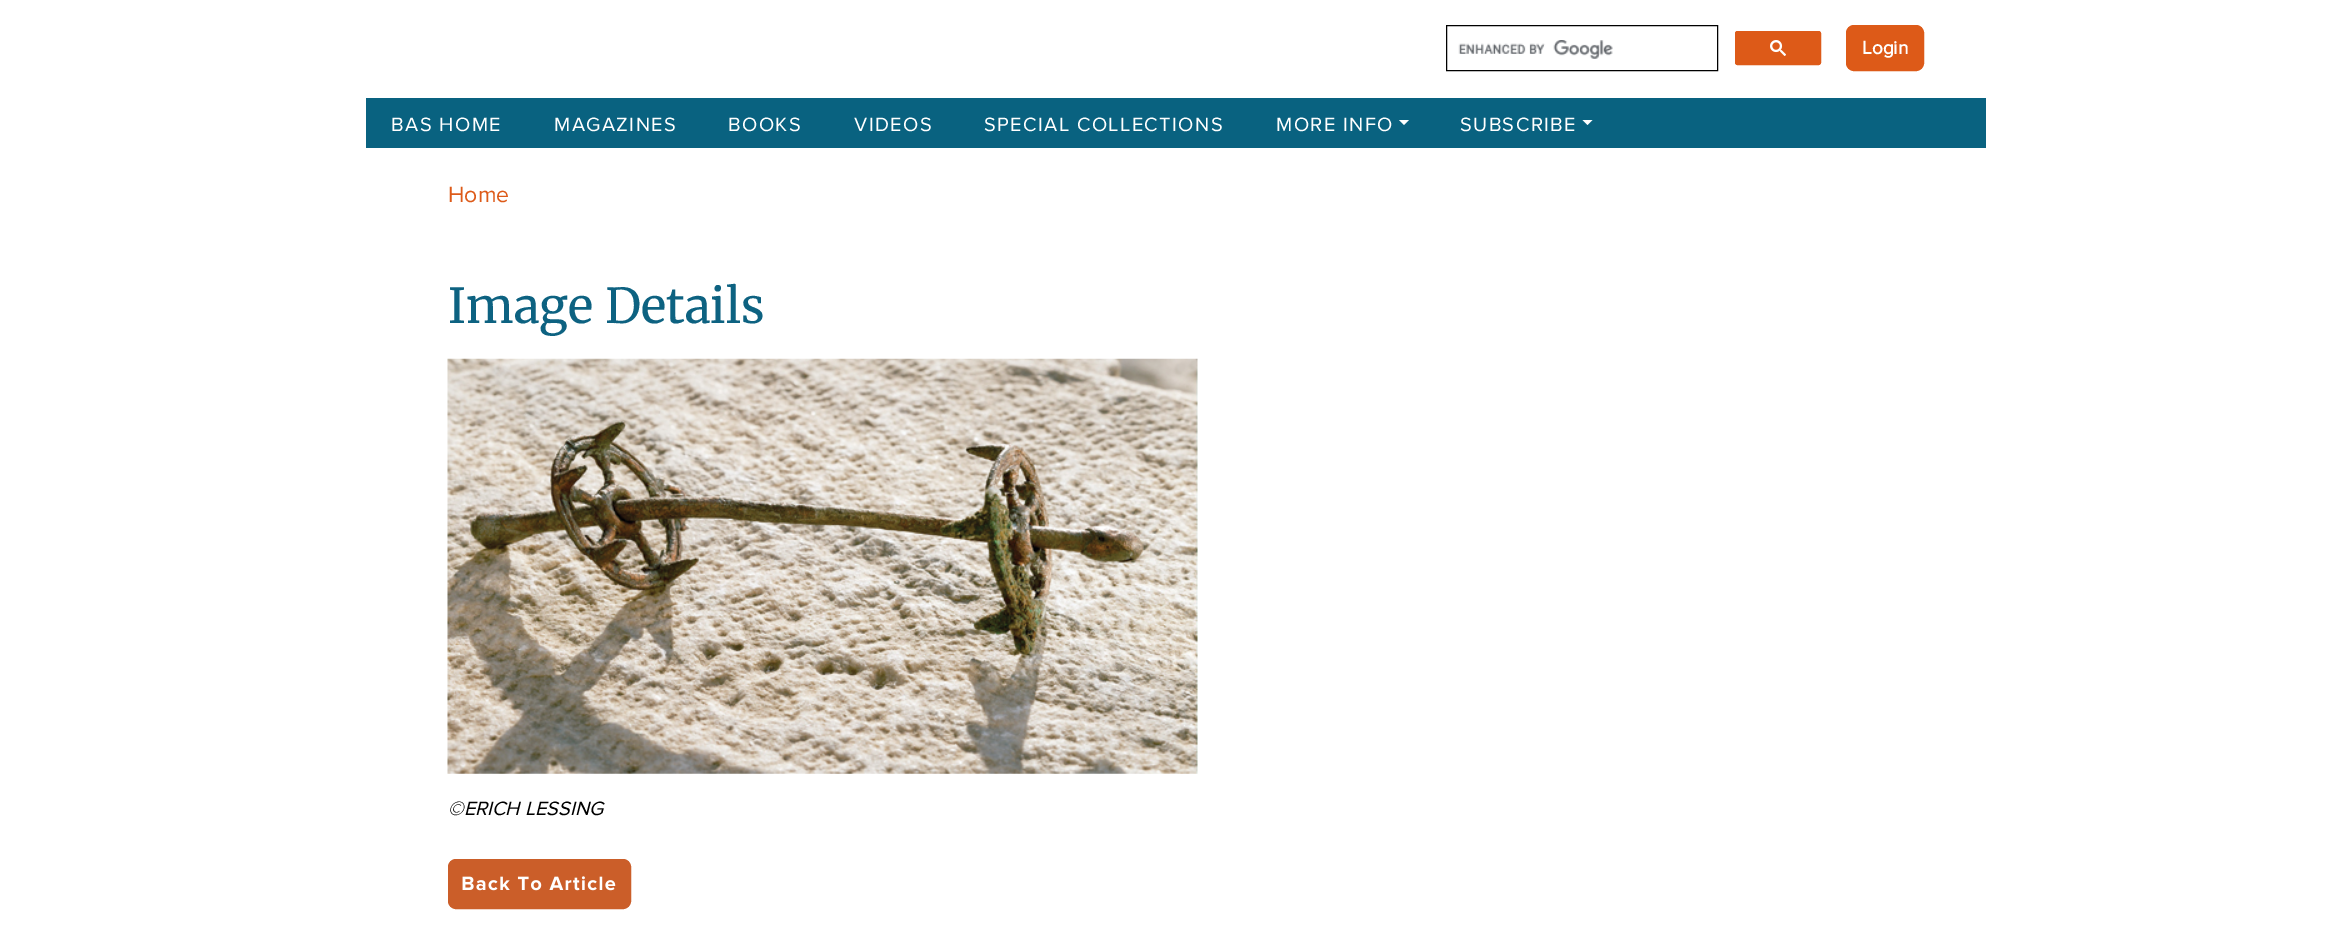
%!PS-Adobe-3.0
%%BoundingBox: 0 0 2352 926
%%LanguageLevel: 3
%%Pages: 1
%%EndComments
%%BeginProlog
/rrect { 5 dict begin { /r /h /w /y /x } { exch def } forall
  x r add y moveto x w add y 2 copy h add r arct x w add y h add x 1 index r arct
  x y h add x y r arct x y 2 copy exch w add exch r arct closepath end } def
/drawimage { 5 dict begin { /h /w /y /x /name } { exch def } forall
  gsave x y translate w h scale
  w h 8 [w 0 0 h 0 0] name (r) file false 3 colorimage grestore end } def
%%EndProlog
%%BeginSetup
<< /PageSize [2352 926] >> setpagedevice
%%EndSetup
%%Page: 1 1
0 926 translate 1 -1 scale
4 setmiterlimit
1 setgray
0 0 2352 926 rectfill
0 setgray
1446.5 25.5 271 45 rectstroke
(images/1.raw) 1458 40 155 19 drawimage
0.867 0.353 0.094 setrgbcolor
1735.5 31.5 85 33 2 rrect gsave fill grestore
stroke
(images/2.raw) 1770 40 16 16 drawimage
1846.5 25.5 77 45 7.5 rrect gsave fill grestore
stroke
0.035 0.384 0.502 setrgbcolor
366 98 1620 50 rectfill
1 setgray
newpath 1399 120 moveto 1409 120 lineto 1404 125 lineto closepath fill
newpath 1582.5 120 moveto 1592.5 120 lineto 1587.5 125 lineto closepath fill
(images/3.raw) 447 358 751 416 drawimage
0.796 0.369 0.161 setrgbcolor
448.5 859.5 182 49 7.5 rrect gsave fill grestore
stroke
(images/4.raw) 462 876 154 15 drawimage
/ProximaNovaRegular-Bold [19 0 0 -19 0 0] selectfont
1 setgray
1862 54 moveto (Login) show
/ProximaNovaRegular-Regular [20 0 0 -20 0 0] selectfont
391 131 moveto 1.4 0 (BAS HOME) ashow
554 131 moveto 1.4 0 (MAGAZINES) ashow
728 131 moveto 1.4 0 (BOOKS) ashow
854 131 moveto 1.4 0 (VIDEOS) ashow
984 131 moveto 1.4 0 (SPECIAL COLLECTIONS) ashow
1276 131 moveto 1.4 0 (MORE INFO) ashow
1460 131 moveto 1.4 0 (SUBSCRIBE) ashow
/ProximaNovaRegular-Regular [23 0 0 -23 0 0] selectfont
0.867 0.353 0.094 setrgbcolor
448 202 moveto (Home) show
/Merriweather-Regular [48 0 0 -48 0 0] selectfont
0.051 0.384 0.506 setrgbcolor
448 323 moveto (Image Details) show
/ProximaNovaRegular-Italic [20 0 0 -20 0 0] selectfont
0 setgray
448 815 moveto (©ERICH LESSING) show
showpage
%%EOF
